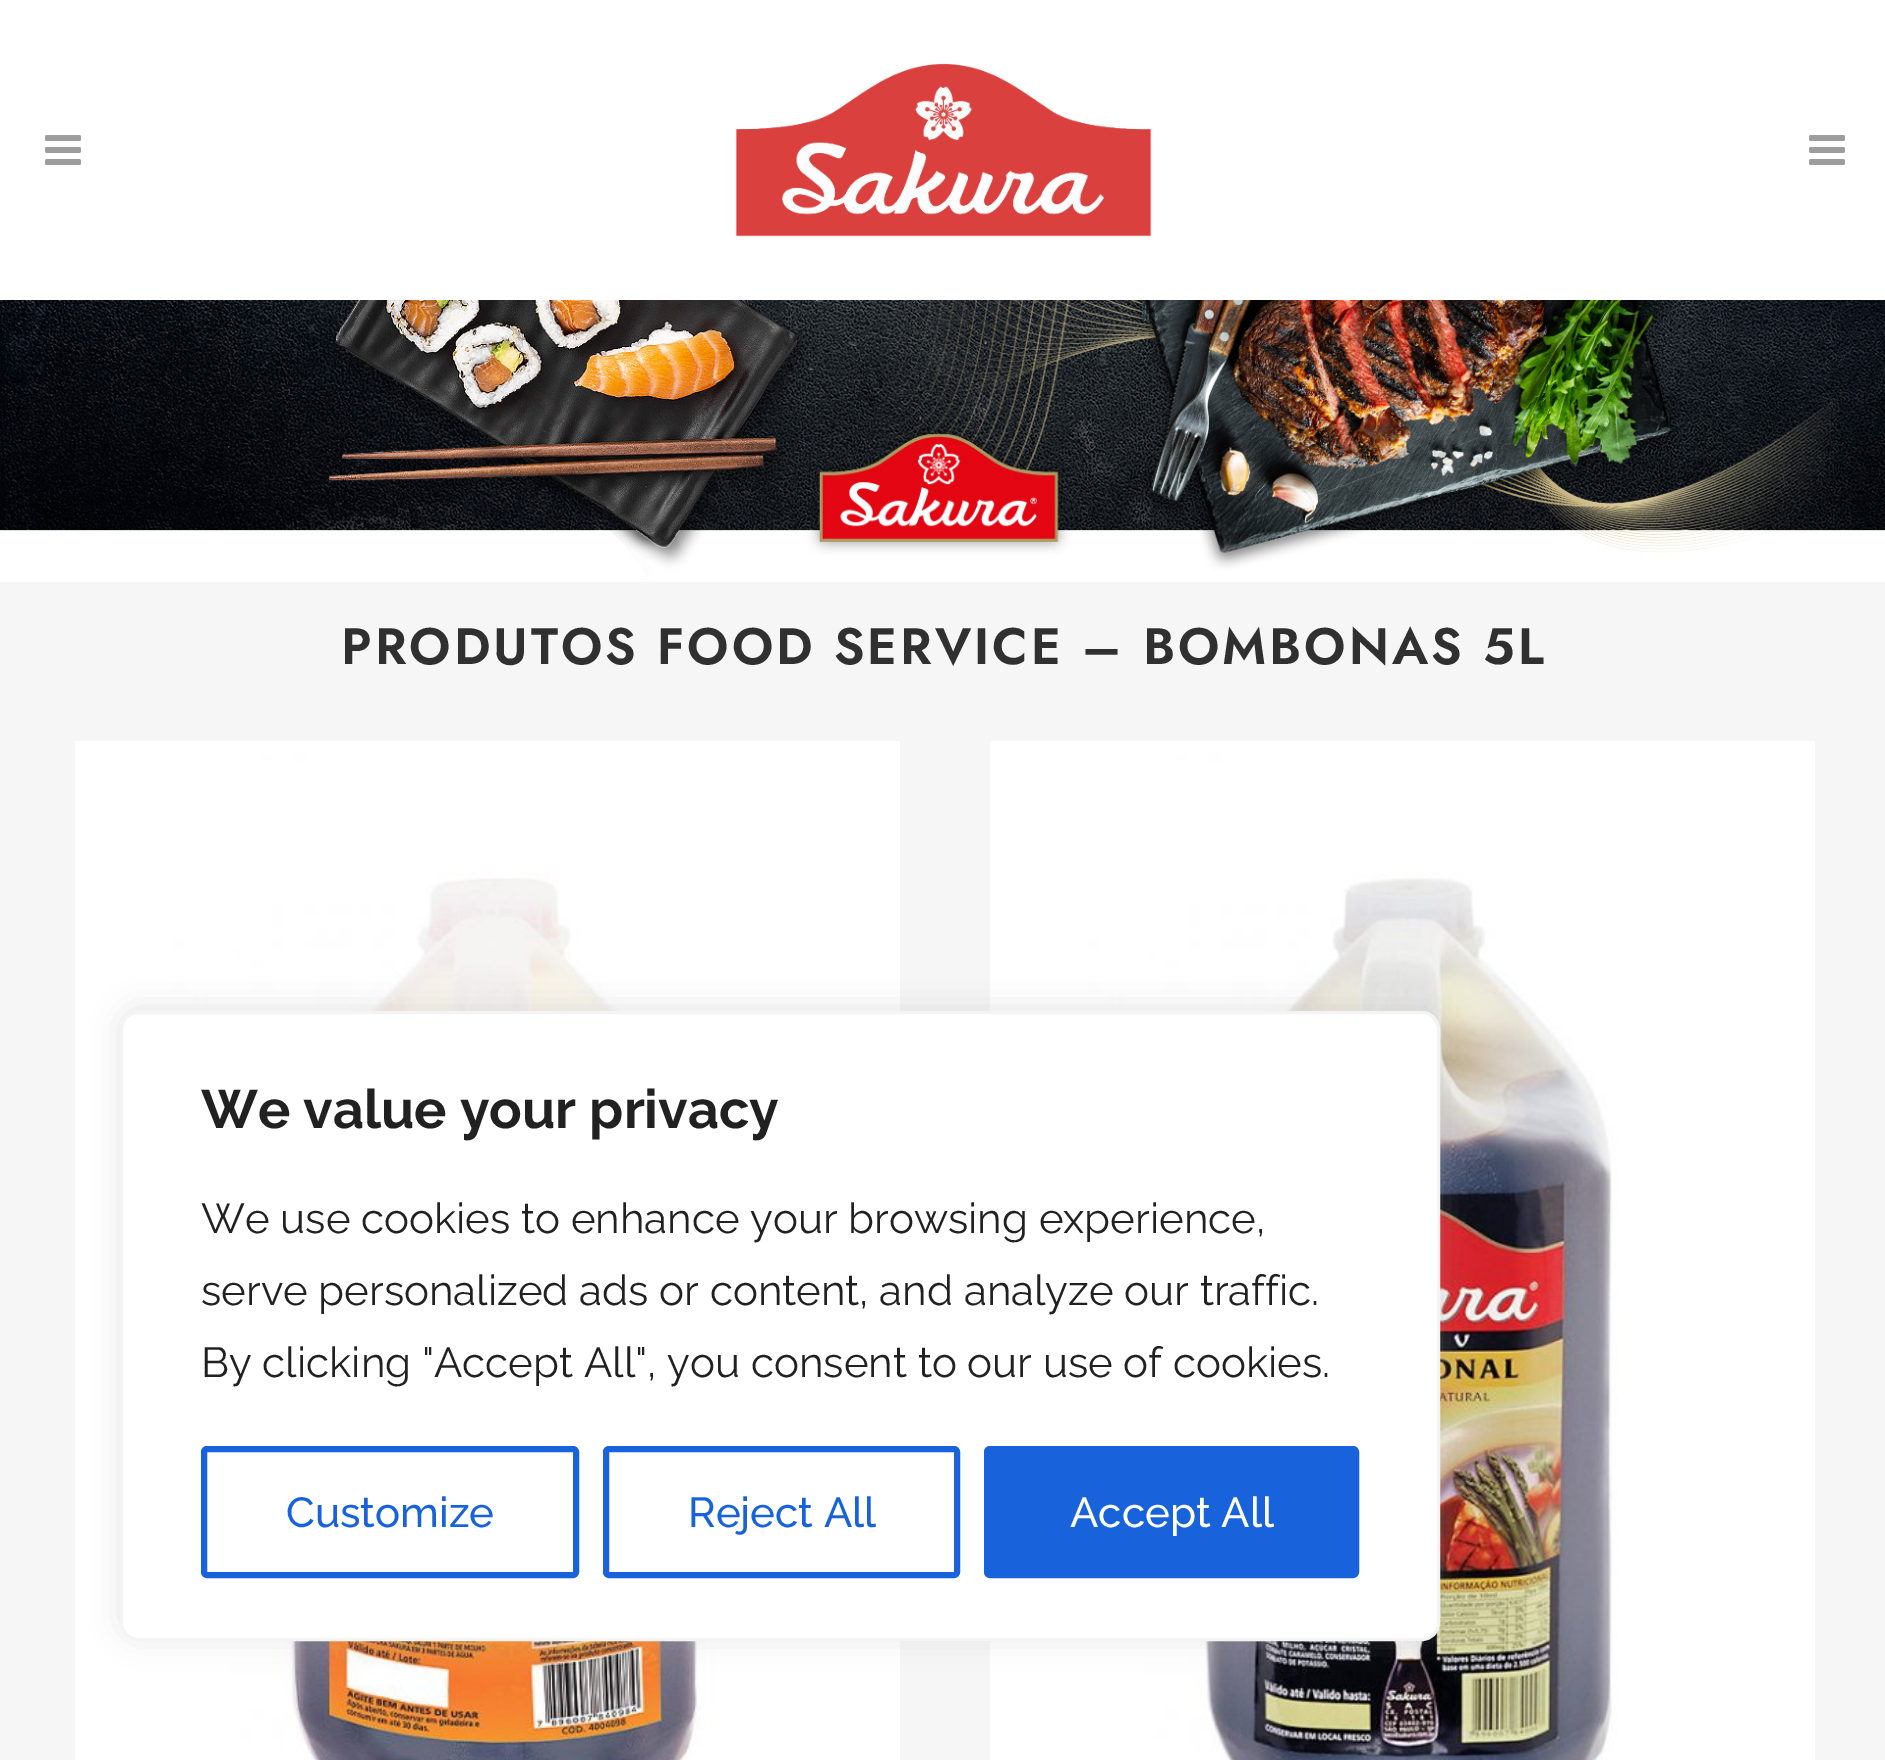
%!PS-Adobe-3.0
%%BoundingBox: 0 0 1885 1760
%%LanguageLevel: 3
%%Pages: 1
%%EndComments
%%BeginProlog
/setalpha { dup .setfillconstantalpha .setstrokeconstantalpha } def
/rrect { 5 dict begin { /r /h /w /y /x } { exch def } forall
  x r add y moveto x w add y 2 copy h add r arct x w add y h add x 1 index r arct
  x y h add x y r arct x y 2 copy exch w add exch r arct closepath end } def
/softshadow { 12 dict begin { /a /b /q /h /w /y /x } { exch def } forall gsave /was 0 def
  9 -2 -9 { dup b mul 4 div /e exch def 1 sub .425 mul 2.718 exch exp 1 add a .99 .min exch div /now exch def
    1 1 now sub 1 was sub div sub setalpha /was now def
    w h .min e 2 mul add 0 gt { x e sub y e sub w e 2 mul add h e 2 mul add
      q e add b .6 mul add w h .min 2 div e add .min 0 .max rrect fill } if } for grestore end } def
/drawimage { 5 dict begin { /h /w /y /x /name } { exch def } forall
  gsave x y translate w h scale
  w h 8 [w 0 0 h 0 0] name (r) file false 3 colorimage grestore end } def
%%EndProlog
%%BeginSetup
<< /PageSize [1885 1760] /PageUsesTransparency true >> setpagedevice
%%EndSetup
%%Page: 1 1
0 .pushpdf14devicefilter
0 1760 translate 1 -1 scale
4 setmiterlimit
0.965 setgray
0 0 1885 1760 rectfill
1 setgray
0 0 1885 300 rectfill
(images/1.raw) 45 135 36 30 drawimage
(images/2.raw) 735 63 417 174 drawimage
(images/1.raw) 1809 135 36 30 drawimage
(images/3.raw) 0 300 1885 282 drawimage
(images/4.raw) 75 741 825 1019 drawimage
(images/5.raw) 990 741 825 1019 drawimage
0.675 0.671 0.671 setrgbcolor
120 1008 1320 630 18 15 0.3 softshadow
1 setgray
121.5 1012.5 1317 627 16.5 rrect gsave fill grestore
0.957 setgray
3 setlinewidth
stroke
0.094 0.388 0.863 setrgbcolor
6 setlinewidth
204 1449 372 126 3 rrect stroke
606 1449 351 126 3 rrect stroke
987 1449 369 126 3 rrect gsave fill grestore
stroke
/Jost-SemiBold [51 0 0 -51 0 0] selectfont
0.188 setgray
341 664 moveto 3 0 (PRODUTOS FOOD SERVICE – BOMBONAS 5L) ashow
/Raleway-Bold [54 0 0 -54 0 0] selectfont
0.129 setgray
201 1128 moveto (We value your privacy) show
/Raleway-Regular [42 0 0 -42 0 0] selectfont
201 1233 moveto (We use cookies to enhance your browsing experience,) show
201 1305 moveto (serve personalized ads or content, and analyze our traffic.) show
201 1377 moveto (By clicking "Accept All", you consent to our use of cookies.) show
/Raleway-Medium [42 0 0 -42 0 0] selectfont
0.094 0.388 0.863 setrgbcolor
286 1527 moveto (Customize) show
688 1527 moveto (Reject All) show
1 setgray
1070 1527 moveto (Accept All) show
.poppdf14devicefilter showpage
%%EOF
